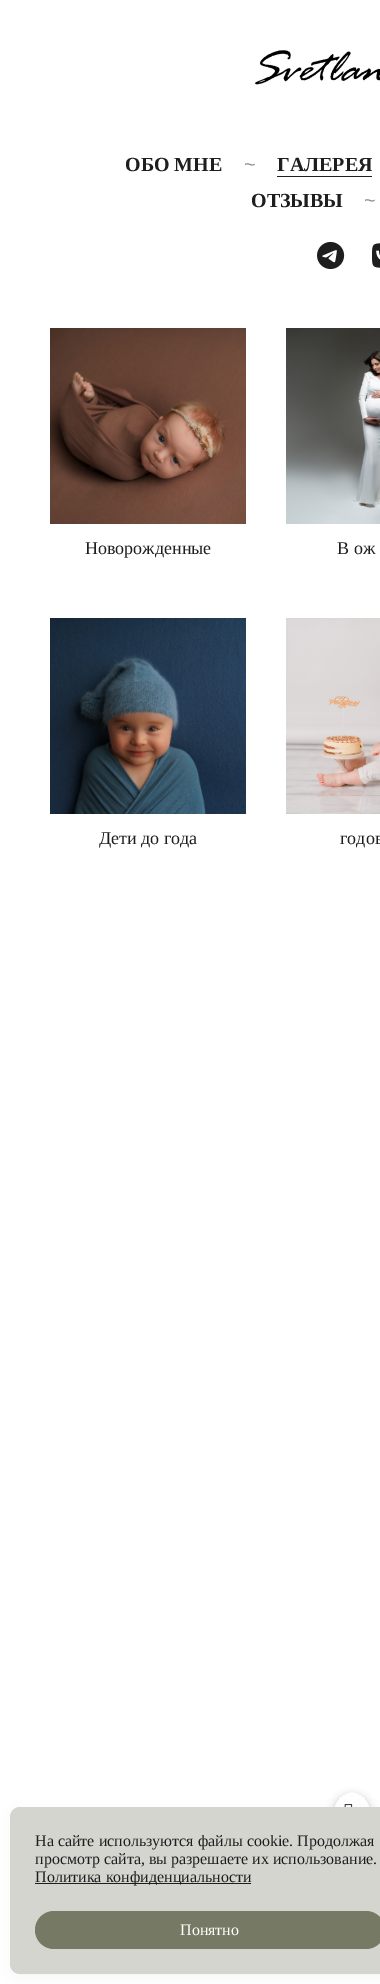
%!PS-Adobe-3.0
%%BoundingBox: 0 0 380 1984
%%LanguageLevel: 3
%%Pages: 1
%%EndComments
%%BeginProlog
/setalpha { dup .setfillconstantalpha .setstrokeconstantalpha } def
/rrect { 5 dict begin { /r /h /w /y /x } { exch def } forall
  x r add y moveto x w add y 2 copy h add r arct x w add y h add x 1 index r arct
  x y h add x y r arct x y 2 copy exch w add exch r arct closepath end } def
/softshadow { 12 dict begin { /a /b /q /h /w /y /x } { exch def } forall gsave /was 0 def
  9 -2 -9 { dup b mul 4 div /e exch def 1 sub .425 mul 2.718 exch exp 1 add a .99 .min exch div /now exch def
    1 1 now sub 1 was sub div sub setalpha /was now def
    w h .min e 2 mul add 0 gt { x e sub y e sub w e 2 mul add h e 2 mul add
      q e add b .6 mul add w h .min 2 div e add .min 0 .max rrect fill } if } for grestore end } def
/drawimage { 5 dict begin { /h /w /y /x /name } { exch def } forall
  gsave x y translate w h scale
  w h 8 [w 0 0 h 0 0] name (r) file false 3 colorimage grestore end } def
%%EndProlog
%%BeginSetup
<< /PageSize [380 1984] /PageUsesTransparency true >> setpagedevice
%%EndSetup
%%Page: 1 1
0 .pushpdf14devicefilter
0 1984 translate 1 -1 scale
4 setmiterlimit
1 setgray
0 0 380 1984 rectfill
(images/1.raw) 255 50 125 35 drawimage
0.118 setgray
277 176 95 1 rectfill
(images/2.raw) 317 241 28 29 drawimage
(images/3.raw) 372 243 8 25 drawimage
(images/4.raw) 50 328 196 196 drawimage
(images/5.raw) 286 328 94 196 drawimage
(images/6.raw) 50 618 196 196 drawimage
(images/7.raw) 286 618 94 196 drawimage
gsave
newpath 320 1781 moveto 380 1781 lineto 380 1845 lineto 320 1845 lineto closepath 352 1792 moveto 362 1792 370 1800 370 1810 curveto 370 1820 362 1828 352 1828 curveto 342 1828 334 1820 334 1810 curveto 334 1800 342 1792 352 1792 curveto closepath eoclip newpath
0 setgray
333 1794 38 38 19 4 0.15 softshadow
grestore
(images/8.raw) 344 1804 9 3 drawimage
0 setgray
10 1812 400 167 10 10 0.04 softshadow
0.835 0.835 0.812 setrgbcolor
10 1807 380 167 10 rrect fill
0.118 setgray
35 1883 216 1 rectfill
0.463 0.475 0.388 setrgbcolor
35 1911 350 38 19 rrect fill
/LiberationSerif-Bold [20 0 0 -20 0 0] selectfont
0.118 setgray
125 171 moveto (ОБО МНЕ) show
/LiberationSans-Regular [20 0 0 -20 0 0] selectfont
0.561 setgray
244 171 moveto (~) show
/LiberationSerif-Bold [20 0 0 -20 0 0] selectfont
0.118 setgray
277 171 moveto (ГАЛЕРЕЯ) show
251 207 moveto (ОТЗЫВЫ) show
/LiberationSans-Regular [20 0 0 -20 0 0] selectfont
0.561 setgray
364 207 moveto (~) show
/LiberationSerif-Regular [18 0 0 -18 0 0] selectfont
0.118 setgray
85 554 moveto (Новорожденные) show
337 554 moveto (В ож) show
99 844 moveto (Дети до года) show
340 844 moveto (годов) show
/LiberationSerif-Regular [16 0 0 -16 0 0] selectfont
35 1846 moveto (На сайте используются файлы cookie. Продолжая) show
35 1864 moveto (просмотр сайта, вы разрешаете их использование.) show
35 1882 moveto (Политика конфиденциальности) show
1 setgray
180 1935 moveto (Понятно) show
.poppdf14devicefilter showpage
%%EOF
